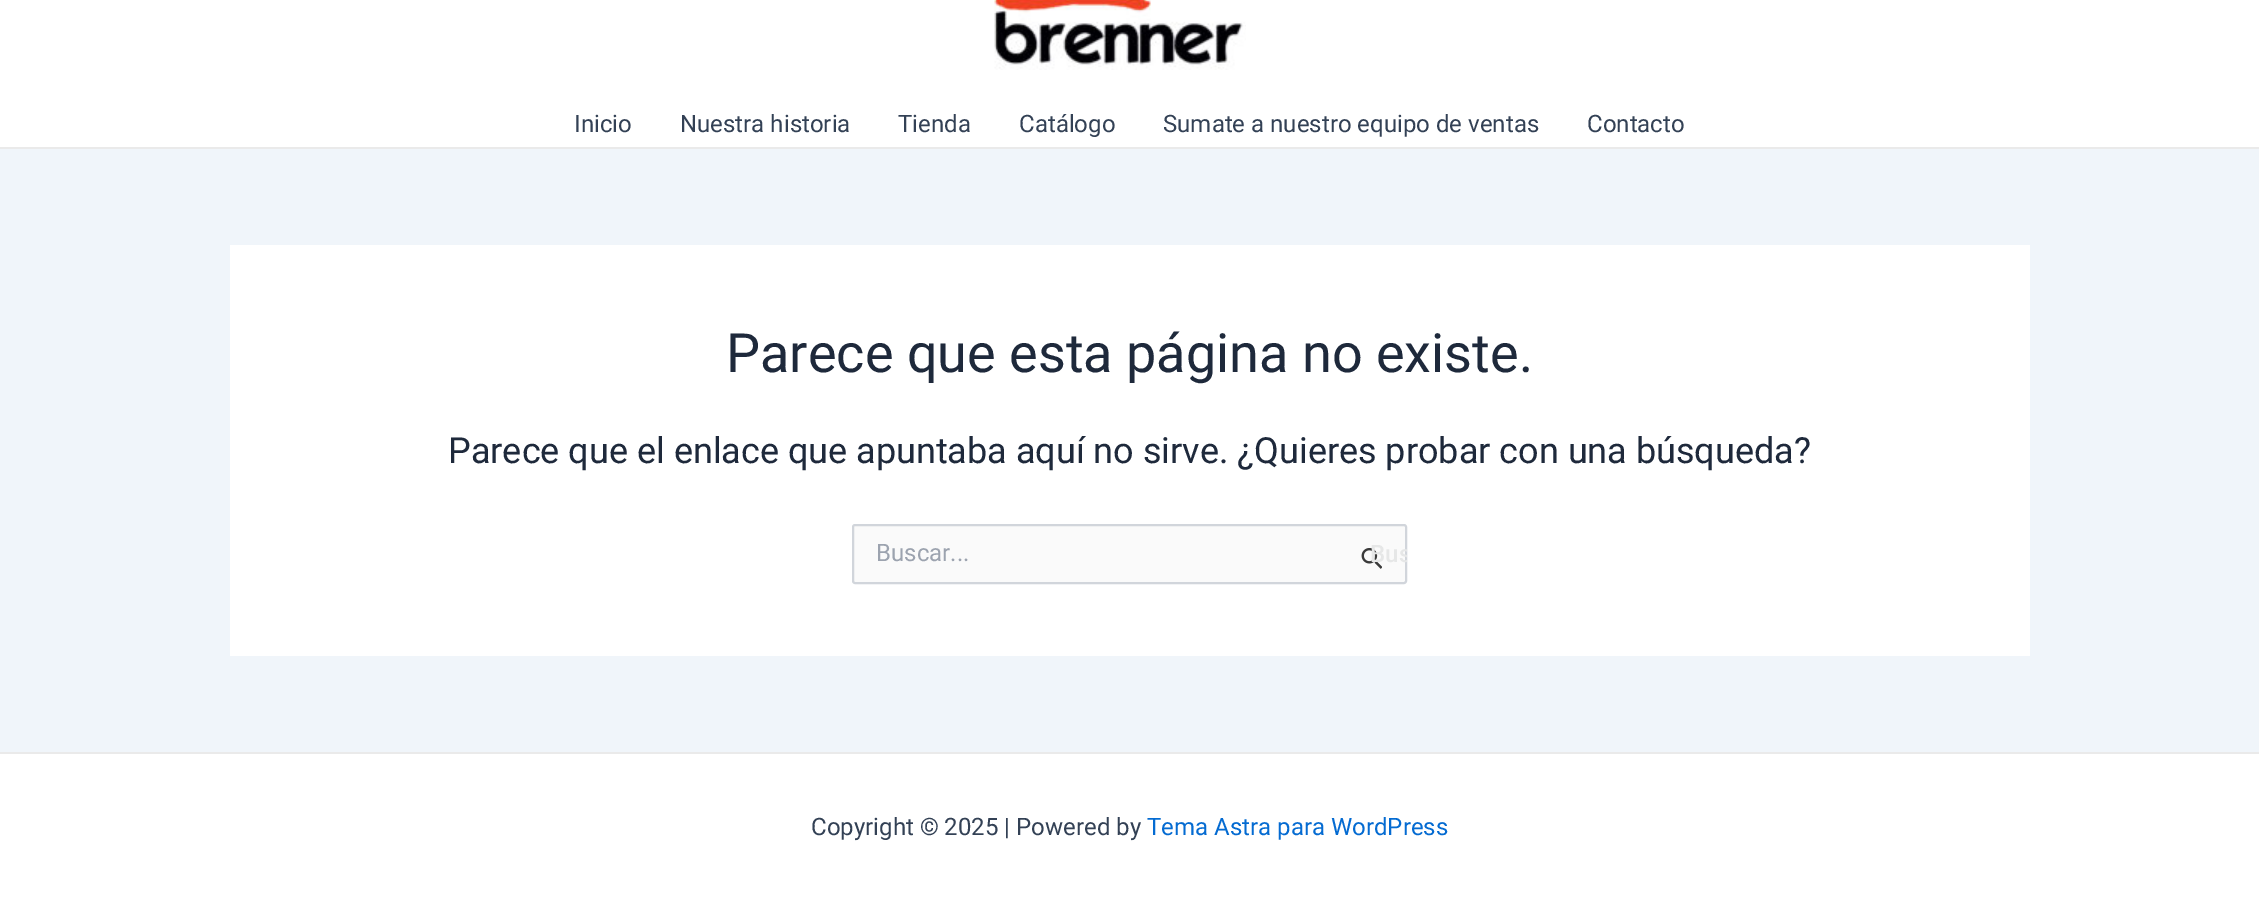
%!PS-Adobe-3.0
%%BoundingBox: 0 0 2259 903
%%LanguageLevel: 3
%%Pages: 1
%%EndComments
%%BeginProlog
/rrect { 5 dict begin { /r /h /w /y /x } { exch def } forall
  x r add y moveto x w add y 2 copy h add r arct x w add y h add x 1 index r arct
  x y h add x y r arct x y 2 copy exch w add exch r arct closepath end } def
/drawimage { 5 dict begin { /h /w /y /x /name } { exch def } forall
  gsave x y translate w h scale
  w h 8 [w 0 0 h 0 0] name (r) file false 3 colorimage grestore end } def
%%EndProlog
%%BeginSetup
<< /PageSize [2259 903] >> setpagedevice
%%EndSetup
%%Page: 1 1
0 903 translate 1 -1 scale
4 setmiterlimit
0.941 0.961 0.98 setrgbcolor
0 0 2259 903 rectfill
1 setgray
0 0 2259 147 rectfill
(images/1.raw) 994 0 252 70 drawimage
0.918 setgray
0 147 2259 2 rectfill
1 setgray
230 245 1800 411 rectfill
0.98 setgray
853 525 553 58 2 rrect gsave fill grestore
0.82 0.835 0.859 setrgbcolor
2 setlinewidth
stroke
(images/2.raw) 1361 548 21 21 drawimage
1 setgray
0 754 2259 149 rectfill
0.918 setgray
0 752 2259 2 rectfill
/Roboto-Regular [24 0 0 -24 0 0] selectfont
0.2 0.255 0.333 setrgbcolor
574 132 moveto (Inicio) show
680 132 moveto (Nuestra historia) show
898 132 moveto (Tienda) show
1019 132 moveto (Catálogo) show
1163 132 moveto (Sumate a nuestro equipo de ventas) show
1587 132 moveto (Contacto) show
/Roboto-Regular [54 0 0 -54 0 0] selectfont
0.118 0.161 0.231 setrgbcolor
726 372 moveto (Parece que esta página no existe.) show
/Roboto-Regular [36 0 0 -36 0 0] selectfont
448 463 moveto (Parece que el enlace que apuntaba aquí no sirve. ¿Quieres probar con una búsqueda?) show
/Roboto-Regular [24 0 0 -24 0 0] selectfont
0.612 0.639 0.686 setrgbcolor
876 561 moveto (Buscar...) show
gsave
1340 524 67 63 3 rrect clip newpath
/Roboto-Medium [24 0 0 -24 0 0] selectfont
0.902 0.906 0.906 setrgbcolor
1370 562 moveto (Bus) show
grestore
0.2 0.255 0.333 setrgbcolor
811 835 moveto (Copyright © 2025 | Powered by) show
0.016 0.42 0.824 setrgbcolor
1147 835 moveto (Tema Astra para WordPress) show
showpage
%%EOF
